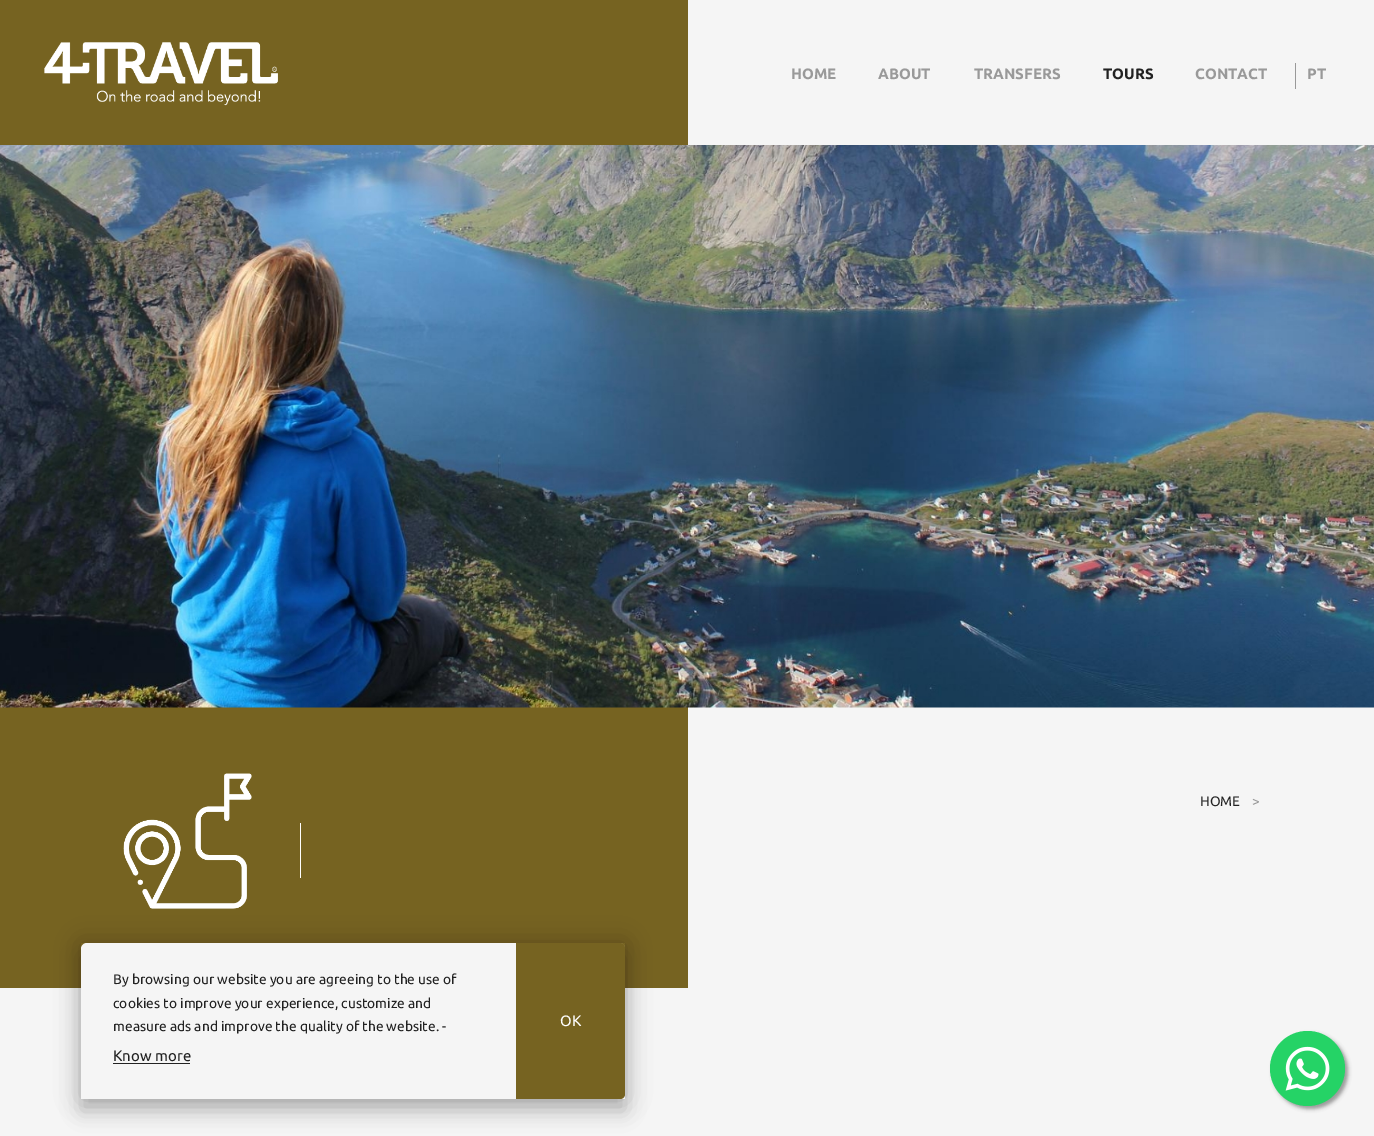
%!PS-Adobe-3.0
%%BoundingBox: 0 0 1374 1136
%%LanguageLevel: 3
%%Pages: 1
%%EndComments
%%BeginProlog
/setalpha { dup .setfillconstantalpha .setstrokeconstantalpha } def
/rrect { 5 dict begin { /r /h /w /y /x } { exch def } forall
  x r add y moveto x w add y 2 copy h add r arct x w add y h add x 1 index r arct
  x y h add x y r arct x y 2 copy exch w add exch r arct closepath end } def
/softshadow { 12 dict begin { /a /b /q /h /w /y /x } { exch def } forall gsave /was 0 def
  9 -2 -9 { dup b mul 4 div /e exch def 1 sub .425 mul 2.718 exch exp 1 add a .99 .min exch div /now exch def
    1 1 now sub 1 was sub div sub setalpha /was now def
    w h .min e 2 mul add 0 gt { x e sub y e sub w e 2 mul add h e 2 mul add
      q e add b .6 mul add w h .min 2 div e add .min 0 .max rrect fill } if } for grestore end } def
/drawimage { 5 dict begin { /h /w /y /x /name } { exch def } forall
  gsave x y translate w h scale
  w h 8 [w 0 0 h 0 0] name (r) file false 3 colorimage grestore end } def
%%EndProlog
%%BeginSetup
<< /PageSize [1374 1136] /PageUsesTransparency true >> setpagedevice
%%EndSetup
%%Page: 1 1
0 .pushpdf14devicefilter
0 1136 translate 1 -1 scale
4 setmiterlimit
0.463 0.388 0.129 setrgbcolor
0 0 1374 1136 rectfill
0.961 setgray
688 0 686 988 rectfill
(images/1.raw) 44 42 234 64 drawimage
0.6 setgray
1295 63 1 26 rectfill
(images/2.raw) 0 145 1374 563 drawimage
(images/3.raw) 123 773 129 136 drawimage
1 setgray
300 823 1 55 rectfill
0.961 setgray
0 988 1374 148 rectfill
81 943 544 156 6 rrect fill
gsave
newpath 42 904 moveto 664 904 lineto 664 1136 lineto 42 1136 lineto closepath 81 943 moveto 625 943 lineto 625 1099 lineto 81 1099 lineto closepath eoclip newpath
0 setgray
81 943 544 156 0 12.5 0.19 softshadow
grestore
gsave
newpath 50 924 moveto 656 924 lineto 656 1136 lineto 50 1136 lineto closepath 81 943 moveto 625 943 lineto 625 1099 lineto 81 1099 lineto closepath eoclip newpath
0 setgray
81 955 544 156 0 10 0.2 softshadow
grestore
0.133 setgray
113 1063 77 1 rectfill
0.463 0.388 0.129 setrgbcolor
newpath 516 943 moveto 620 943 lineto 623 943 625 945 625 948 curveto 625 1094 lineto 625 1097 623 1099 620 1099 curveto 516 1099 lineto closepath fill
0.6 setgray
1273 1034 75 75 37.5 2 1 softshadow
0.145 0.827 0.4 setrgbcolor
newpath 1307.5 1068.5 37.5 0 360 arc closepath fill
(images/4.raw) 1285 1046 45 45 drawimage
/Ubuntu-Bold [15 0 0 -15 0 0] selectfont
0.6 setgray
791 79 moveto (HOME) show
878 79 moveto (ABOUT) show
974 79 moveto (TRANSFERS) show
0.133 setgray
1103 79 moveto (TOURS) show
0.6 setgray
1195 79 moveto (CONTACT) show
1307 79 moveto (PT) show
/Ubuntu-Regular [13.75 0 0 -13.75 0 0] selectfont
0.133 setgray
1200 806 moveto (HOME) show
0.6 setgray
1252 806 moveto (>) show
0.133 setgray
113 984 moveto (By browsing our website you are agreeing to the use of) show
113 1008 moveto (cookies to improve your experience, customize and) show
113 1031 moveto (measure ads and improve the quality of the website. -) show
/Ubuntu-Regular [15 0 0 -15 0 0] selectfont
113 1061 moveto (Know more) show
1 setgray
560 1026 moveto (OK) show
.poppdf14devicefilter showpage
%%EOF
